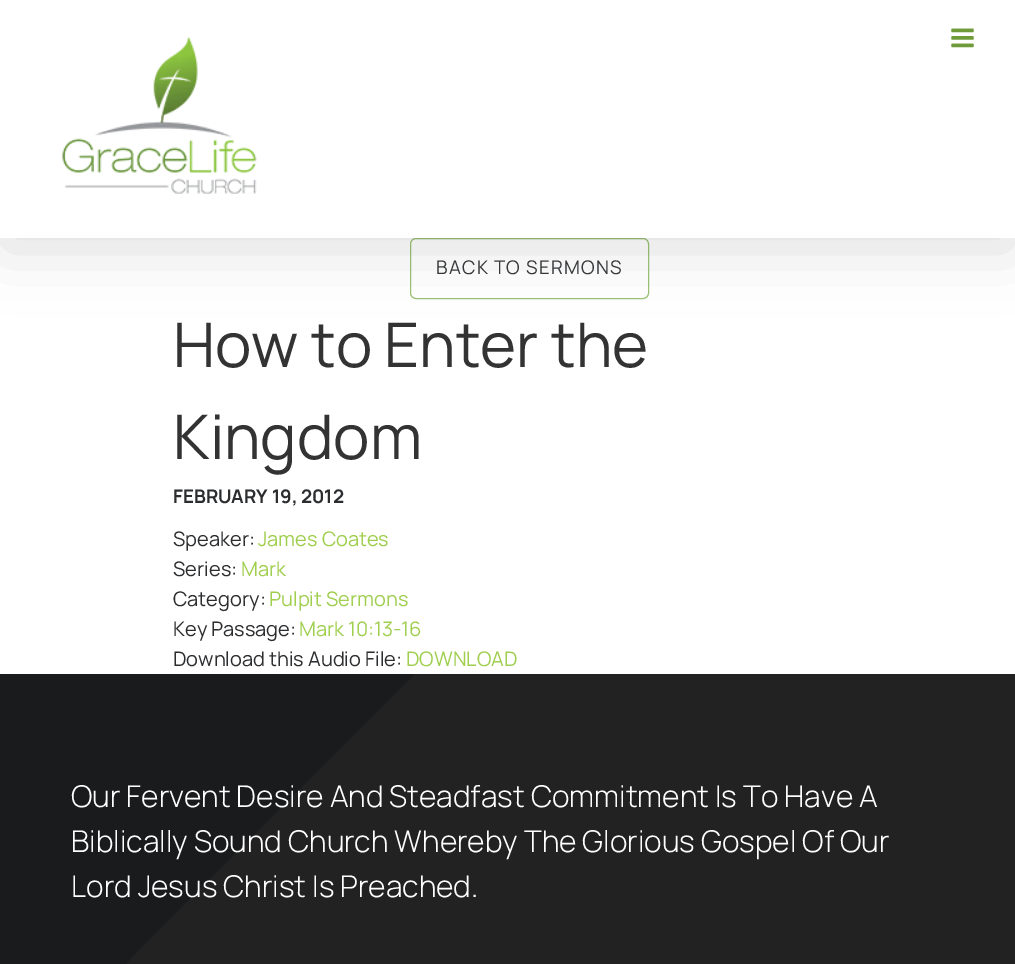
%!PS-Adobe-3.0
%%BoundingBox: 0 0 1015 964
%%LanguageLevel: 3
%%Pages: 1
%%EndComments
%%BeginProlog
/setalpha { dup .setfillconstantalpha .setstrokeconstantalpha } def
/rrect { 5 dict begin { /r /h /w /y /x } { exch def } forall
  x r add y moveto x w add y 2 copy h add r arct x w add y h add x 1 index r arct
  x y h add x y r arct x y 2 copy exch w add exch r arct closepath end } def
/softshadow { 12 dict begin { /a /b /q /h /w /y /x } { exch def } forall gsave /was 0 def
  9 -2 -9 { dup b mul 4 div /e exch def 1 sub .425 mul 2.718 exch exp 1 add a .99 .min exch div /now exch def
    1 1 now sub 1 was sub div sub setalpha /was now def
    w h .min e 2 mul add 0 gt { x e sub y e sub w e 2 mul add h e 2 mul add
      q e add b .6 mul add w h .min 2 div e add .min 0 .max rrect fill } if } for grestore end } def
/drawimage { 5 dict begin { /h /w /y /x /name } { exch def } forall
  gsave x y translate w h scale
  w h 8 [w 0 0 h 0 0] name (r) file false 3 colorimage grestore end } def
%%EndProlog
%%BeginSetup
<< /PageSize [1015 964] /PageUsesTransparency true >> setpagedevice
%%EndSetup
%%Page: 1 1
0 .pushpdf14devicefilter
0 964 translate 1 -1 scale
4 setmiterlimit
1 setgray
0 0 1015 964 rectfill
0.612 0.761 0.467 setrgbcolor
410.5 238.5 238 60 5.5 rrect stroke
0 setgray
3 15 1010 233 0 31 0.14 softshadow
1 setgray
0 0 1015 238 rectfill
(images/1.raw) 62 36 195 158 drawimage
(images/2.raw) 951 28 23 20 drawimage
0.102 0.106 0.11 setrgbcolor
0 674 415 290 rectfill
0.133 0.133 0.137 setrgbcolor
newpath 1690 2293 moveto 249 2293 lineto 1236 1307 lineto 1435 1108 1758 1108 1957 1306 curveto 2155 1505 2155 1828 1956 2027 curveto closepath 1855 674 moveto 869 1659 lineto 670 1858 347 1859 148 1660 curveto -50 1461 -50 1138 149 940 curveto 415 674 lineto closepath eofill
/Manrope-Regular [18.75 0 0 -18.75 0 0] selectfont
0.212 0.22 0.224 setrgbcolor
436 274 moveto 1.25 0 (BACK TO SERMONS) ashow
/Manrope-Regular [61.5 0 0 -61.5 0 0] selectfont
0.2 setgray
173 367 moveto (How to Enter the) show
173 459 moveto (Kingdom) show
/Manrope-Bold [18.75 0 0 -18.75 0 0] selectfont
0.173 0.176 0.184 setrgbcolor
173 503 moveto (FEBRUARY 19, 2012) show
/Manrope-Regular [20 0 0 -20 0 0] selectfont
173 546 moveto (Speaker:) show
0.627 0.808 0.306 setrgbcolor
258 546 moveto (James Coates) show
0.173 0.176 0.184 setrgbcolor
173 576 moveto (Series:) show
0.627 0.808 0.306 setrgbcolor
241 576 moveto (Mark) show
0.173 0.176 0.184 setrgbcolor
173 606 moveto (Category:) show
0.627 0.808 0.306 setrgbcolor
269 606 moveto (Pulpit Sermons) show
0.173 0.176 0.184 setrgbcolor
173 636 moveto (Key Passage:) show
0.627 0.808 0.306 setrgbcolor
299 636 moveto (Mark 10:13-16) show
0.173 0.176 0.184 setrgbcolor
173 666 moveto (Download this Audio File:) show
0.627 0.808 0.306 setrgbcolor
406 666 moveto (DOWNLOAD) show
/Manrope-Light [30 0 0 -30 0 0] selectfont
1 setgray
71 807 moveto (Our Fervent Desire And Steadfast Commitment Is To Have A) show
71 852 moveto (Biblically Sound Church Whereby The Glorious Gospel Of Our) show
71 897 moveto (Lord Jesus Christ Is Preached.) show
.poppdf14devicefilter showpage
%%EOF
